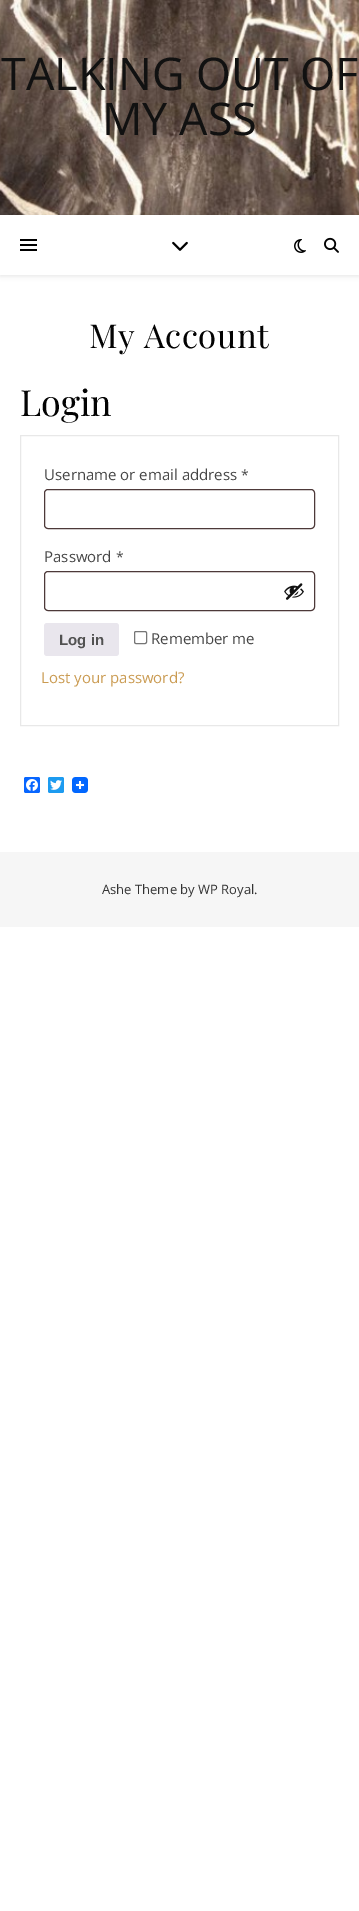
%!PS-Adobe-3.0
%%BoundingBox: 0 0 359 1911
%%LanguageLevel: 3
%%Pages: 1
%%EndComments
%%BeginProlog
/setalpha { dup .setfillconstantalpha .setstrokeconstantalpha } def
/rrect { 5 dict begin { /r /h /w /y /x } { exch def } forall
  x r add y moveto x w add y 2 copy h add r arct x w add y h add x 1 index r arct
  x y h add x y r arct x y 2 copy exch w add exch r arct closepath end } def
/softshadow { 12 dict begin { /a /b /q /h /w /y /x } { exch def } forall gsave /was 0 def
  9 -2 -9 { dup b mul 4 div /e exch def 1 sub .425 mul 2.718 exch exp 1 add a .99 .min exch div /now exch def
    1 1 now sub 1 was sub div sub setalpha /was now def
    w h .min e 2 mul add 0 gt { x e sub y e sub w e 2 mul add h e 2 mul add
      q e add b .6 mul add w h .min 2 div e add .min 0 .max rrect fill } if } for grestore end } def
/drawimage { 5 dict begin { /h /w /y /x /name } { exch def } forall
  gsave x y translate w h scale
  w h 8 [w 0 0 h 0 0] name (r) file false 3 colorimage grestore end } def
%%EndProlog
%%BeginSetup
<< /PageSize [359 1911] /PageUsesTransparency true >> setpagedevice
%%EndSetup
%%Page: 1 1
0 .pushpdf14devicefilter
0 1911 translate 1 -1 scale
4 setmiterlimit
1 setgray
0 0 359 1911 rectfill
(images/1.raw) 0 0 359 215 drawimage
gsave
newpath 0 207 moveto 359 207 lineto 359 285 lineto 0 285 lineto closepath 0 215 moveto 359 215 lineto 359 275 lineto 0 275 lineto closepath eoclip newpath
0 setgray
0 216 359 60 0 2.5 0.1 softshadow
grestore
0 setgray
20 239 17 2 rectfill
20 244 17 2 rectfill
20 249 17 2 rectfill
(images/2.raw) 172 241 16 10 drawimage
(images/3.raw) 294 239 12 14 drawimage
(images/4.raw) 324 237 15 16 drawimage
0.91 setgray
20.5 435.5 318 290 rectstroke
0.302 0.224 0.224 setrgbcolor
44.5 489.5 270 39 3.5 rrect stroke
44.5 571.5 270 39 3.5 rrect stroke
(images/5.raw) 284 583 20 17 drawimage
0.914 0.902 0.929 setrgbcolor
44 623 75 33 3 rrect fill
0.463 setgray
134.5 631.5 12 12 1.5 rrect stroke
0.031 0.4 1 setrgbcolor
24 777 16 16 2 rrect fill
(images/6.raw) 26 779 12 12 drawimage
0.114 0.608 0.941 setrgbcolor
48 777 16 16 2 rrect fill
(images/7.raw) 50 780 12 10 drawimage
(images/8.raw) 72 777 16 16 drawimage
0.965 setgray
0 852 359 75 rectfill
/OpenSans-Regular [45 0 0 -45 0 0] selectfont
0.067 setgray
1 90 moveto (TALKING OUT OF) show
102 135 moveto (MY ASS) show
/PlayfairDisplay-Regular [33 0 0 -33 0 0] selectfont
0.012 setgray
89 348 moveto 0.5 0 (My Account) ashow
/PlayfairDisplay-Regular [36 0 0 -36 0 0] selectfont
20 416 moveto (Login) show
/OpenSans-Regular [15 0 0 -15 0 0] selectfont
0.275 setgray
44 480 moveto (Username or email address) show
/OpenSans-Regular [14 0 0 -14 0 0] selectfont
241 480 moveto 1 0 (*) ashow
/OpenSans-Regular [15 0 0 -15 0 0] selectfont
44 562 moveto (Password) show
/OpenSans-Regular [14 0 0 -14 0 0] selectfont
116 562 moveto 1 0 (*) ashow
/LiberationSans-Bold [15 0 0 -15 0 0] selectfont
0.318 setgray
59 645 moveto (Log in) show
/OpenSans-Regular [15 0 0 -15 0 0] selectfont
0.275 setgray
151 644 moveto (Remember me) show
0.792 0.608 0.322 setrgbcolor
41 683 moveto (Lost your password?) show
/OpenSans-Regular [13 0 0 -13 0 0] selectfont
0.2 setgray
102 894 moveto (Ashe Theme by WP Royal.) show
.poppdf14devicefilter showpage
%%EOF
